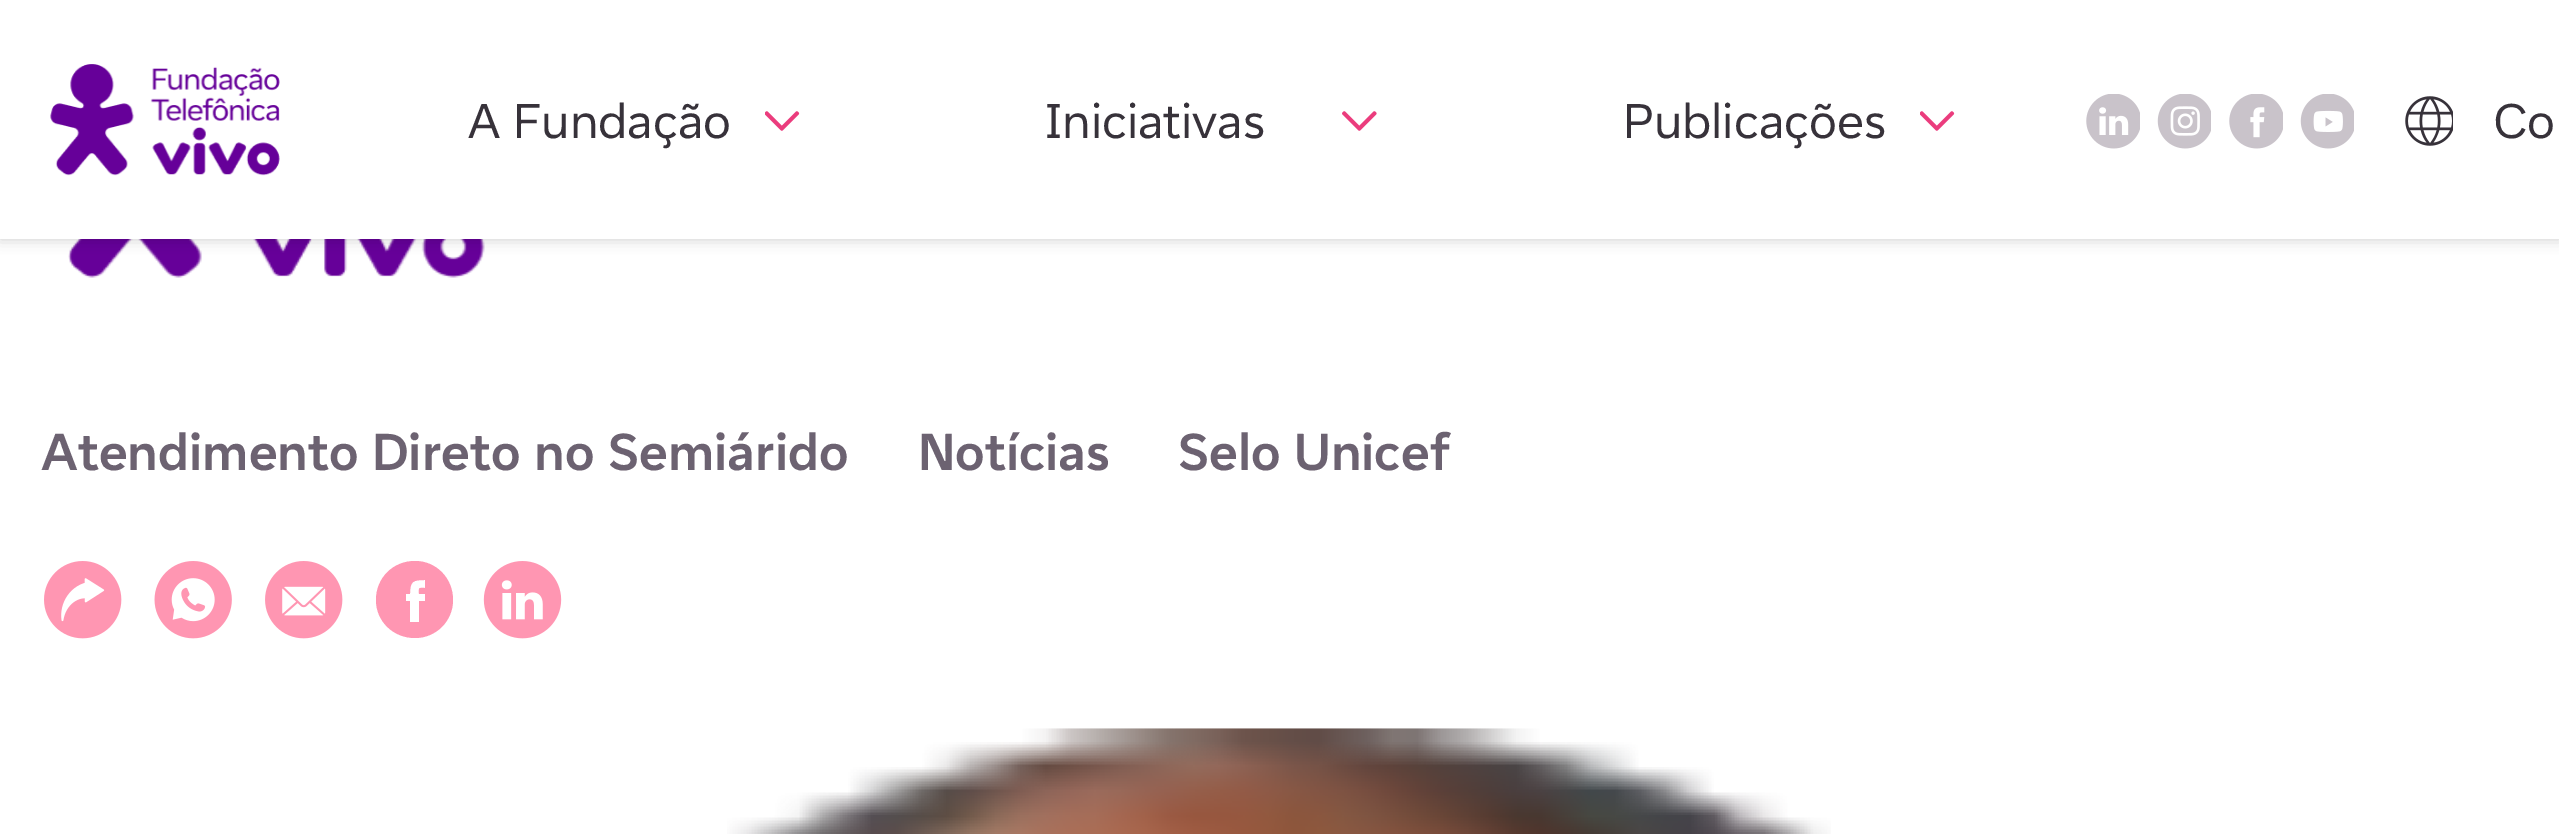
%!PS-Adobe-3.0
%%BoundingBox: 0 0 2559 834
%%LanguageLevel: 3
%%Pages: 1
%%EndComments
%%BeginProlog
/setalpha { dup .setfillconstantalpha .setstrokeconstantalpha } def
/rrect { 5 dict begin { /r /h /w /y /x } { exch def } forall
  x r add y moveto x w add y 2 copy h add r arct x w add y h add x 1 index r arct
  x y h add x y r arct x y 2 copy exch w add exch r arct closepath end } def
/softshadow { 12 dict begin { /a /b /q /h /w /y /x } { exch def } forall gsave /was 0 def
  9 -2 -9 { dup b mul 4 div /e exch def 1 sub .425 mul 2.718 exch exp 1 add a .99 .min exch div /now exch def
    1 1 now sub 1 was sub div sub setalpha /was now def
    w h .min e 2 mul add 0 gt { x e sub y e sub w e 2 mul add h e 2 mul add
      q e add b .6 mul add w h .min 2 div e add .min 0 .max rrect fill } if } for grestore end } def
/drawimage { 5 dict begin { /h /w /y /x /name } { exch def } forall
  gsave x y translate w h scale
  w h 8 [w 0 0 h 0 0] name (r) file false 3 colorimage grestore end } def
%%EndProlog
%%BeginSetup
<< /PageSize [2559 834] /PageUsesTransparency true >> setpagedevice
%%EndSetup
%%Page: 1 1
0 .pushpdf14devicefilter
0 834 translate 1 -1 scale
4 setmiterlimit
1 setgray
0 0 2559 834 rectfill
(images/9.raw) 68 239 417 39 drawimage
0 setgray
0 0 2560 239 0 7 0.2 softshadow
1 setgray
0 0 2559 239 rectfill
(images/1.raw) 50 64 230 112 drawimage
(images/2.raw) 765 111 35 20 drawimage
(images/3.raw) 1342 111 35 20 drawimage
(images/2.raw) 1920 111 35 20 drawimage
(images/4.raw) 2086 94 54 55 drawimage
(images/5.raw) 2157 94 54 55 drawimage
(images/6.raw) 2229 94 54 55 drawimage
(images/7.raw) 2300 94 54 55 drawimage
(images/8.raw) 2405 96 48 50 drawimage
(images/10.raw) 44 561 78 78 drawimage
(images/11.raw) 154 561 78 78 drawimage
(images/12.raw) 265 561 78 78 drawimage
1 0.588 0.698 setrgbcolor
newpath 415 561 moveto 393 561 376 578 376 600 curveto 376 621 393 638 415 638 curveto 436 638 453 621 453 600 curveto 453 578 436 561 415 561 curveto closepath 419 601 moveto 419 622 lineto 410 622 lineto 410 601 lineto 406 601 lineto 406 594 lineto 410 594 lineto 410 581 413 580 425 580 curveto 425 588 lineto 418 588 419 587 419 594 curveto 425 594 lineto 425 601 lineto closepath eofill
(images/13.raw) 483 561 79 78 drawimage
(images/14.raw) 727 728 1104 106 drawimage
/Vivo-Regular [49.5 0 0 -49.5 0 0] selectfont
0.216 0.196 0.227 setrgbcolor
468 138 moveto (A Fundação) show
1045 138 moveto (Iniciativas) show
1623 138 moveto (Publicações) show
2494 138 moveto (Co) show
/Vivo-Bold [52.75 0 0 -52.75 0 0] selectfont
0.424 0.384 0.443 setrgbcolor
41 470 moveto (Atendimento Direto no Semiárido) show
918 470 moveto (Notícias) show
1178 470 moveto (Selo Unicef) show
.poppdf14devicefilter showpage
%%EOF
